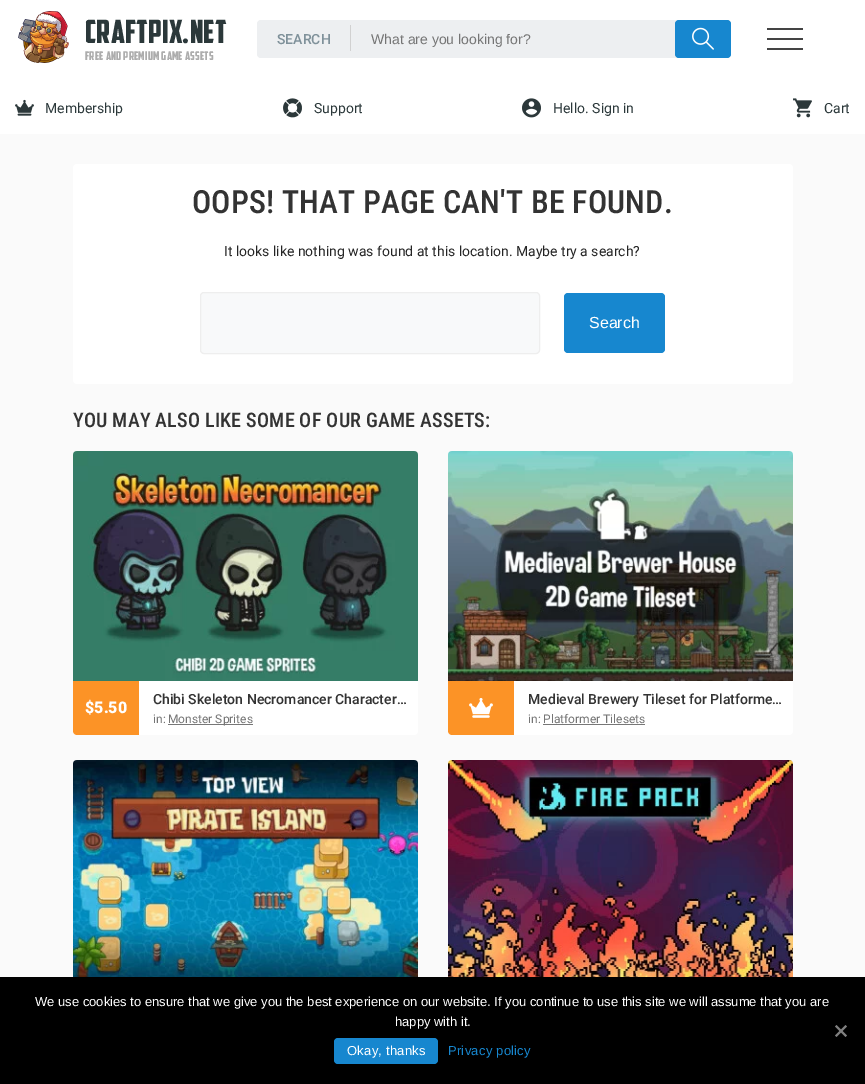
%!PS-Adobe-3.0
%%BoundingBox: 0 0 865 1084
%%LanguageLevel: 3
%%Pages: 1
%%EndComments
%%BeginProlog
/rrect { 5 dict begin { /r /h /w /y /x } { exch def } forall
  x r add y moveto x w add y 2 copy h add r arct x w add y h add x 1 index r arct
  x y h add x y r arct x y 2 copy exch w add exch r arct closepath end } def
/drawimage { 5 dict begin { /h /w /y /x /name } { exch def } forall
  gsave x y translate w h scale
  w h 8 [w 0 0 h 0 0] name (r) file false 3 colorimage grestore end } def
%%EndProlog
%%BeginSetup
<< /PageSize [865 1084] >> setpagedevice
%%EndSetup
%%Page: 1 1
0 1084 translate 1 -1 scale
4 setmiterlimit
0.98 setgray
0 0 865 1084 rectfill
1 setgray
0 0 865 134 rectfill
(images/1.raw) 18 11 51 52 drawimage
0.929 0.937 0.945 setrgbcolor
257 20 474 38 4 rrect fill
0.82 setgray
350 25 1 26 rectfill
0.09 0.529 0.812 setrgbcolor
675 20 56 38 4 rrect fill
(images/2.raw) 692 27 22 23 drawimage
0.267 setgray
767 38 36 2 rectfill
767 28 36 2 rectfill
767 48 36 2 rectfill
(images/3.raw) 15 99 19 17 drawimage
(images/4.raw) 283 98 19 20 drawimage
(images/5.raw) 522 98 19 20 drawimage
(images/6.raw) 793 98 19 20 drawimage
1 setgray
73 164 720 220 4 rrect fill
0.973 0.976 0.98 setrgbcolor
200.5 292.5 339 61 3.5 rrect gsave fill grestore
0.933 setgray
stroke
0.09 0.529 0.812 setrgbcolor
564 293 101 60 4 rrect fill
1 setgray
73 451 345 284 4 rrect fill
(images/7.raw) 73 451 345 230 drawimage
0.988 0.576 0.149 setrgbcolor
newpath 73 681 moveto 139 681 lineto 139 735 lineto 77 735 lineto 75 735 73 733 73 731 curveto closepath fill
0.467 setgray
168 724 85 1 rectfill
1 setgray
448 451 345 284 4 rrect fill
(images/8.raw) 448 451 345 230 drawimage
0.988 0.576 0.149 setrgbcolor
newpath 448 681 moveto 514 681 lineto 514 735 lineto 452 735 lineto 450 735 448 733 448 731 curveto closepath fill
(images/9.raw) 469 698 24 20 drawimage
0.467 setgray
543 724 102 1 rectfill
(images/10.raw) 73 760 345 217 drawimage
(images/11.raw) 448 760 345 217 drawimage
0 setgray
0 977 865 107 rectfill
0.502 setgray
newpath 845.5 1025 moveto 847 1026.5 lineto 836.5 1037 lineto 835 1035.5 lineto closepath fill
newpath 835 1026.5 moveto 836.5 1025 lineto 847 1035.5 lineto 845.5 1037 lineto closepath fill
0.09 0.529 0.812 setrgbcolor
334 1038 104 26 4 rrect fill
/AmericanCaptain-Regular [32 0 0 -32 0 0] selectfont
0.169 0.22 0.227 setrgbcolor
85 43 moveto 0.2 0 (CRAFTPIX.NET) ashow
/AmericanCaptain-Regular [12 0 0 -12 0 0] selectfont
0.678 setgray
85 60 moveto 0.2 0 (FREE AND PREMIUM GAME ASSETS) ashow
/Roboto-Medium [14 0 0 -14 0 0] selectfont
0.498 0.569 0.604 setrgbcolor
277 44 moveto (SEARCH) show
/LiberationSans-Regular [14 0 0 -14 0 0] selectfont
0.459 setgray
371 44 moveto (What are you looking for?) show
/Roboto-Regular [14 0 0 -14 0 0] selectfont
0.169 0.22 0.227 setrgbcolor
45 113 moveto (Membership) show
314 113 moveto (Support) show
553 113 moveto (Hello. Sign in) show
824 113 moveto (Cart) show
/RobotoCondensed-Medium [32 0 0 -32 0 0] selectfont
0.2 setgray
192 213 moveto 0.2 0 (OOPS! THAT PAGE CAN'T BE FOUND.) ashow
/Roboto-Regular [14 0 0 -14 0 0] selectfont
0.145 setgray
224 256 moveto (It looks like nothing was found at this location. Maybe try a search?) show
/LiberationSans-Regular [16 0 0 -16 0 0] selectfont
1 setgray
589 328 moveto (Search) show
/RobotoCondensed-Medium [20 0 0 -20 0 0] selectfont
0.2 setgray
73 427 moveto 0.2 0 (YOU MAY ALSO LIKE SOME OF OUR GAME ASSETS:) ashow
/Roboto-Black [16 0 0 -16 0 0] selectfont
1 setgray
85 713 moveto ($5.50) show
/Roboto-Medium [14 0 0 -14 0 0] selectfont
0.2 setgray
153 704 moveto (Chibi Skeleton Necromancer Character…) show
/Roboto-Regular [12 0 0 -12 0 0] selectfont
0.459 setgray
153 723 moveto (in:) show
168 723 moveto (Monster Sprites) show
/Roboto-Medium [14 0 0 -14 0 0] selectfont
0.2 setgray
528 704 moveto (Medieval Brewery Tileset for Platforme…) show
/Roboto-Regular [12 0 0 -12 0 0] selectfont
0.459 setgray
528 723 moveto (in: Platformer Tilesets) show
/LiberationSans-Regular [13 0 0 -13 0 0] selectfont
1 setgray
35 1006 moveto (We use cookies to ensure that we give you the best experience on our website. If you continue to use this site we will assume that you are) show
395 1026 moveto (happy with it.) show
347 1055 moveto 0.25 0 (Okay, thanks) ashow
0.09 0.529 0.812 setrgbcolor
448 1055 moveto 0.25 0 (Privacy policy) ashow
showpage
%%EOF
